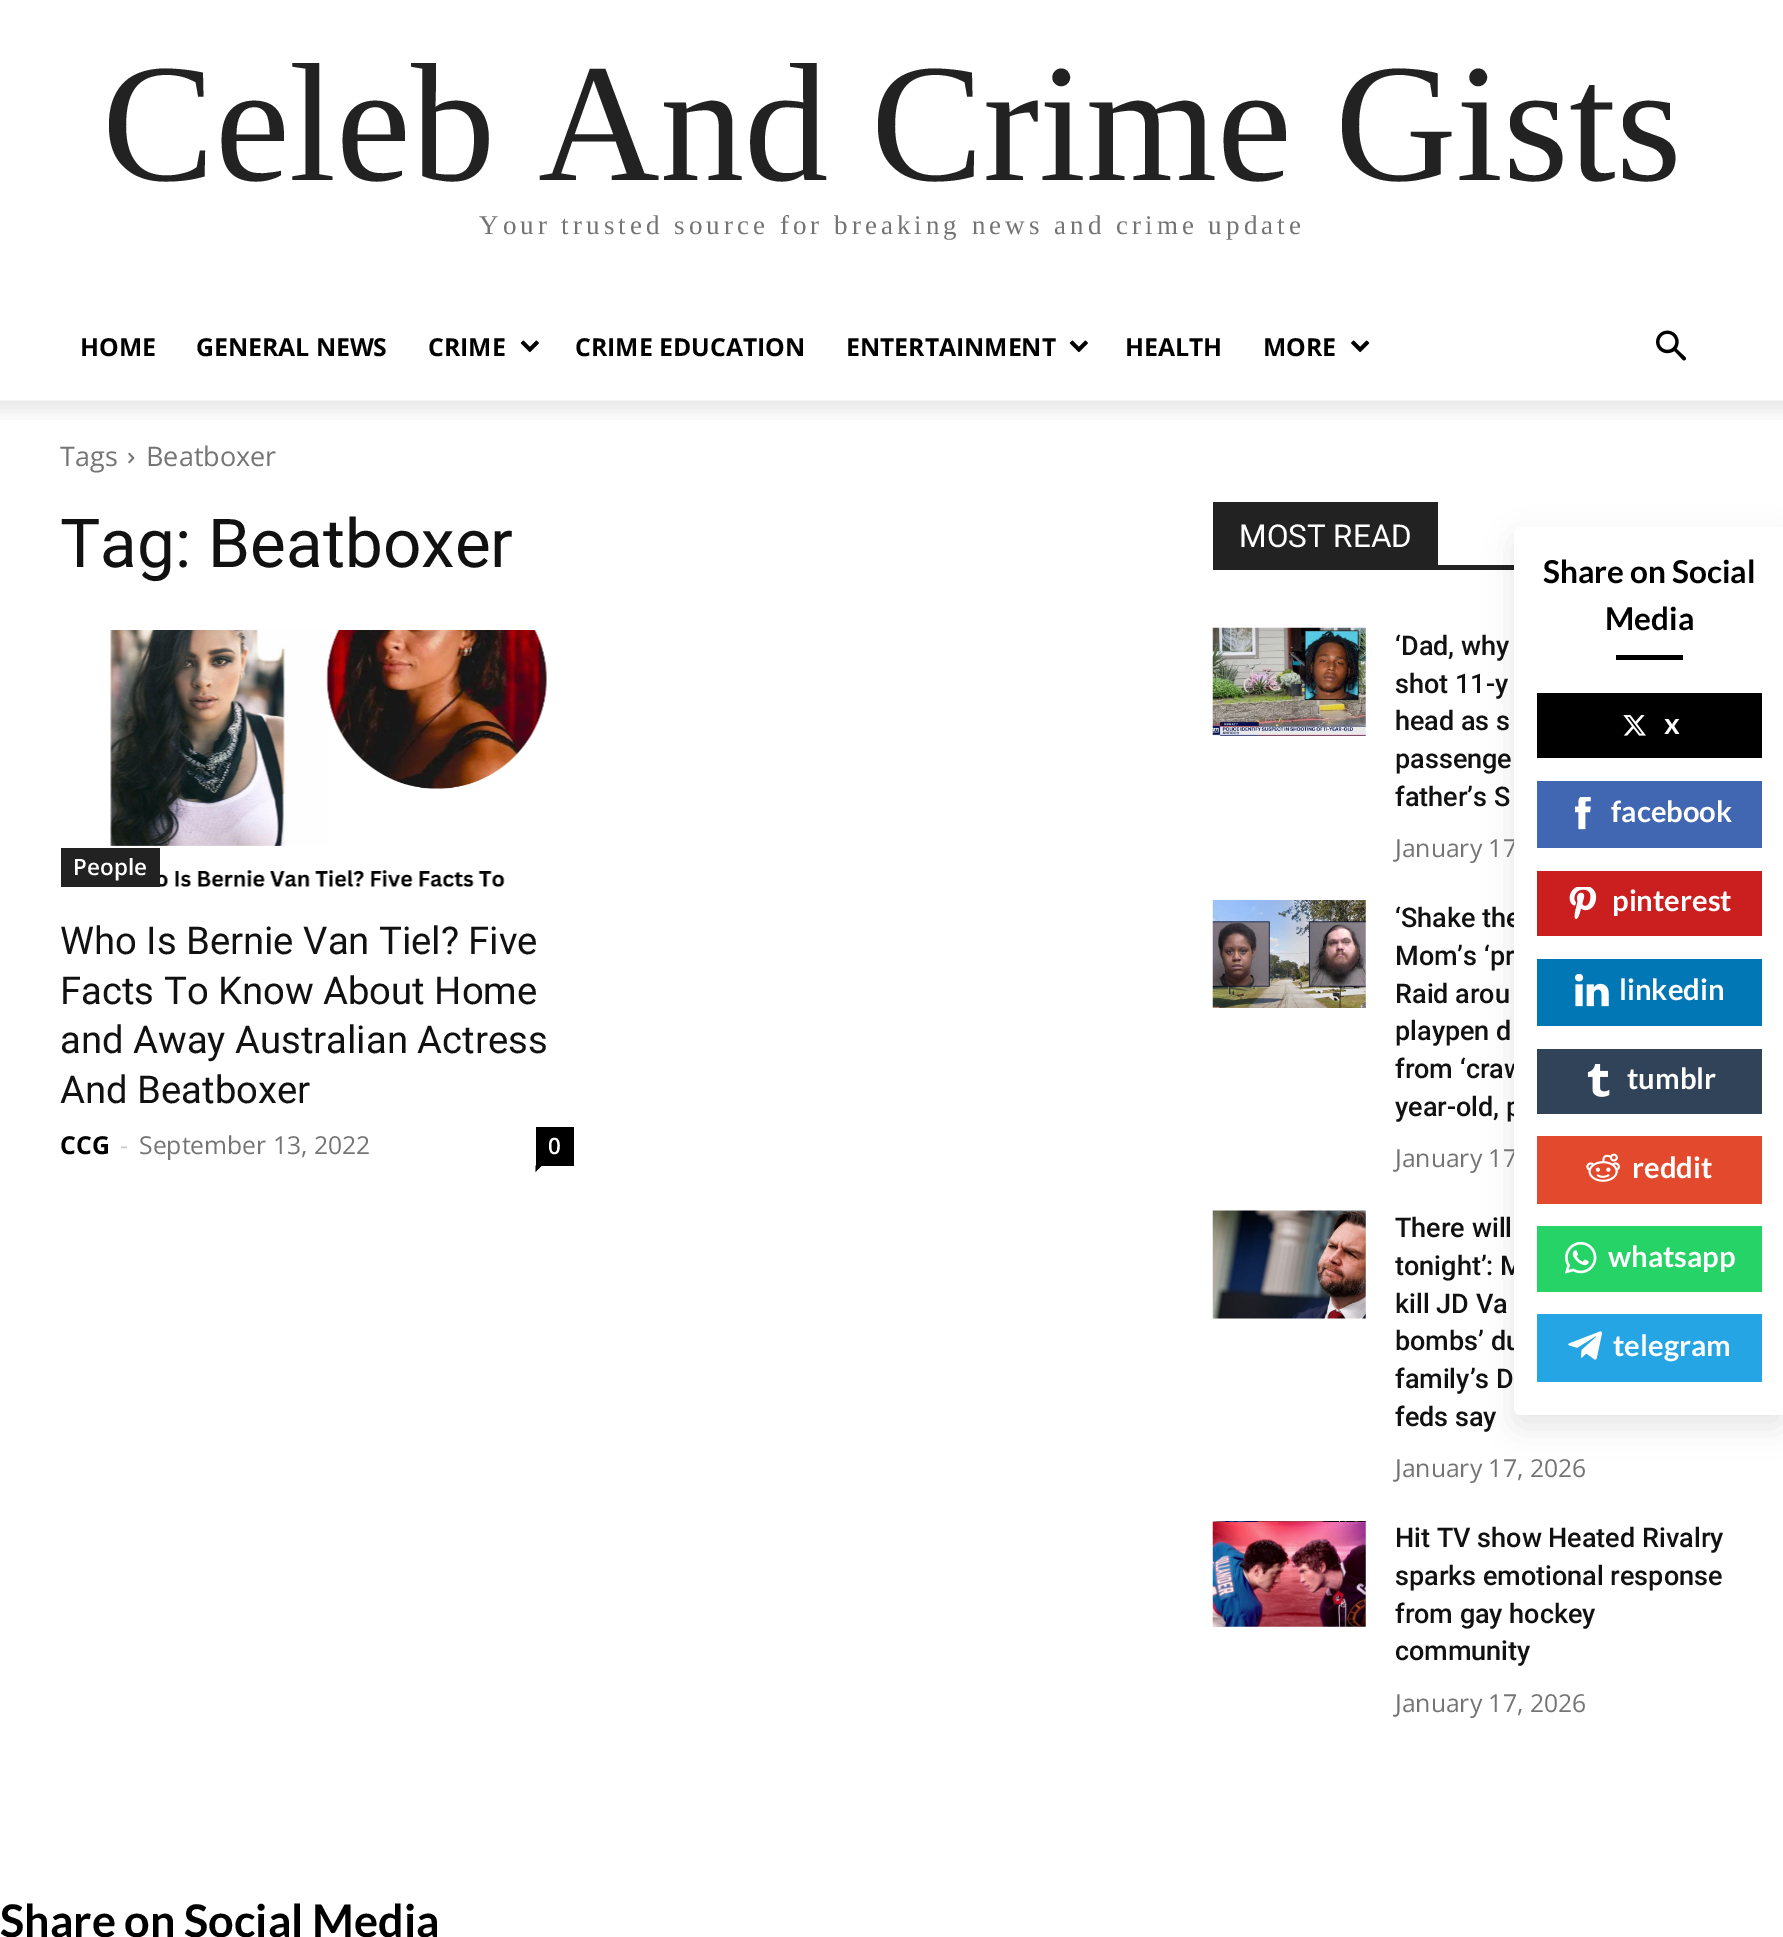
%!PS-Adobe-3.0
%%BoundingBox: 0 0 1783 1937
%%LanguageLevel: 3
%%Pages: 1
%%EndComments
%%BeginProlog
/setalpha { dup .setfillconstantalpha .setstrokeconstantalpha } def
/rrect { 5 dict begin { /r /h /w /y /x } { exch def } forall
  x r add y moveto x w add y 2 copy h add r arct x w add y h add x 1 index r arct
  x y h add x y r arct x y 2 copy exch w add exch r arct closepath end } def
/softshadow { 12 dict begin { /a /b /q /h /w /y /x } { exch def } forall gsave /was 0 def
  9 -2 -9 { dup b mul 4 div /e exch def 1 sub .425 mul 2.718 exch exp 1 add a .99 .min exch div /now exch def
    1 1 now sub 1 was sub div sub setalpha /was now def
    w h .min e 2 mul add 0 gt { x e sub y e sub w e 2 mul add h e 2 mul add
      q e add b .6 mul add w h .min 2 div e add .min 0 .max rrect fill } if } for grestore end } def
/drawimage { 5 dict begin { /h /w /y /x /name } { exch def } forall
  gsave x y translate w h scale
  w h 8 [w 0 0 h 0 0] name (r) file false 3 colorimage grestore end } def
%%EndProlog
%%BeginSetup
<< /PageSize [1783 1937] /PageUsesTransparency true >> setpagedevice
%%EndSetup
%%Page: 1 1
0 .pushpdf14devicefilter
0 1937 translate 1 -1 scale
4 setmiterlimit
1 setgray
0 0 1783 1937 rectfill
(images/1.raw) 520 340 19 13 drawimage
(images/1.raw) 1069 340 19 13 drawimage
(images/2.raw) 1351 340 19 13 drawimage
(images/3.raw) 1656 330 31 31 drawimage
(images/4.raw) 0 400 1783 20 drawimage
(images/5.raw) 128 452 7 12 drawimage
(images/6.raw) 110 630 437 257 drawimage
0.133 setgray
61 848 99 39 rectfill
0 setgray
536 1127 38 39 rectfill
newpath 535.5 1165.5 moveto 542 1165.5 lineto 535.5 1172 lineto closepath fill
0.133 setgray
1213 565 301 5 rectfill
1213 502 225 63 rectfill
(images/7.raw) 1212 627 154 109 drawimage
(images/8.raw) 1212 900 154 108 drawimage
(images/9.raw) 1212 1210 154 109 drawimage
(images/10.raw) 1212 1521 154 106 drawimage
0 setgray
1514 538 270 889 7 14.5 0.1 softshadow
/LiberationSerif-Regular [168.75 0 0 -168.75 0 0] selectfont
0.133 setgray
102 180 moveto (Celeb And Crime Gists) show
/LiberationSerif-Regular [27 0 0 -27 0 0] selectfont
0.455 setgray
479 234 moveto 4.05 0 (Your trusted source for breaking news and crime update) ashow
/OpenSans-Bold [24.75 0 0 -24.75 0 0] selectfont
0 setgray
80 356 moveto (HOME) show
196 356 moveto (GENERAL NEWS) show
428 356 moveto (CRIME) show
575 356 moveto (CRIME EDUCATION) show
846 356 moveto (ENTERTAINMENT) show
1125 356 moveto (HEALTH) show
1263 356 moveto (MORE) show
/OpenSans-Regular [27 0 0 -27 0 0] selectfont
0.455 setgray
60 466 moveto (Tags) show
146 466 moveto (Beatboxer) show
/Roboto-Regular [67.5 0 0 -67.5 0 0] selectfont
0.067 setgray
60 567 moveto (Tag: Beatboxer) show
/OpenSans-SemiBold [22.5 0 0 -22.5 0 0] selectfont
1 setgray
73 875 moveto (People) show
/Roboto-Regular [38.25 0 0 -38.25 0 0] selectfont
0.067 setgray
60 954 moveto (Who Is Bernie Van Tiel? Five) show
60 1004 moveto (Facts To Know About Home) show
60 1053 moveto (and Away Australian Actress) show
60 1103 moveto (And Beatboxer) show
/OpenSans-Bold [24.75 0 0 -24.75 0 0] selectfont
0 setgray
60 1154 moveto (CCG) show
/OpenSans-Regular [24.75 0 0 -24.75 0 0] selectfont
0.8 setgray
120 1154 moveto (-) show
0.455 setgray
139 1154 moveto (September 13, 2022) show
/OpenSans-SemiBold [22.5 0 0 -22.5 0 0] selectfont
1 setgray
548 1154 moveto (0) show
/Roboto-Regular [31.5 0 0 -31.5 0 0] selectfont
1239 547 moveto (MOST READ) show
/Roboto-Medium [27 0 0 -27 0 0] selectfont
0.067 setgray
1395 655 moveto (‘Dad, why) show
1395 693 moveto (shot 11-y) show
1395 730 moveto (head as s) show
1395 768 moveto (passenge) show
1395 806 moveto (father’s S) show
/OpenSans-Regular [24.75 0 0 -24.75 0 0] selectfont
0.455 setgray
1395 857 moveto (January 17) show
/Roboto-Medium [27 0 0 -27 0 0] selectfont
0.067 setgray
1395 927 moveto (‘Shake the) show
1395 965 moveto (Mom’s ‘pr) show
1395 1003 moveto (Raid arou) show
1395 1040 moveto (playpen d) show
1395 1078 moveto (from ‘craw) show
1395 1116 moveto (year-old, p) show
/OpenSans-Regular [24.75 0 0 -24.75 0 0] selectfont
0.455 setgray
1395 1167 moveto (January 17) show
/Roboto-Medium [27 0 0 -27 0 0] selectfont
0.067 setgray
1395 1237 moveto (There will) show
1395 1275 moveto (tonight’: M) show
1395 1313 moveto (kill JD Va) show
1395 1350 moveto (bombs’ du) show
1395 1388 moveto (family’s D) show
1395 1426 moveto (feds say) show
/OpenSans-Regular [24.75 0 0 -24.75 0 0] selectfont
0.455 setgray
1395 1477 moveto (January 17, 2026) show
/Roboto-Medium [27 0 0 -27 0 0] selectfont
0.067 setgray
1395 1547 moveto (Hit TV show Heated Rivalry) show
1395 1585 moveto (sparks emotional response) show
1395 1623 moveto (from gay hockey) show
1395 1660 moveto (community) show
/OpenSans-Regular [24.75 0 0 -24.75 0 0] selectfont
0.455 setgray
1395 1712 moveto (January 17, 2026) show
/Lato-Bold [45 0 0 -45 0 0] selectfont
0 setgray
0 1937 moveto (Share on Social Media) show
1 setgray
newpath 1521 527 moveto 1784 527 lineto 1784 1415 lineto 1521 1415 lineto 1517 1415 1514 1412 1514 1408 curveto 1514 534 lineto 1514 530 1517 527 1521 527 curveto closepath fill
/Lato-Bold [31.5 0 0 -31.5 0 0] selectfont
0 setgray
1543 583 moveto (Share on Social) show
1605 630 moveto (Media) show
1616 655 67 5 rectfill
1537 693 225 65 rectfill
(images/11.raw) 1623 715 23 21 drawimage
/Lato-Bold [29.25 0 0 -29.25 0 0] selectfont
1 setgray
1664 734 moveto (x) show
0.259 0.404 0.698 setrgbcolor
1537 781 225 67 rectfill
(images/12.raw) 1575 797 16 33 drawimage
1 setgray
1611 822 moveto (facebook) show
0.796 0.118 0.122 setrgbcolor
1537 871 225 65 rectfill
(images/13.raw) 1569 887 28 33 drawimage
1 setgray
1612 911 moveto (pinterest) show
0.004 0.467 0.71 setrgbcolor
1537 959 225 67 rectfill
(images/14.raw) 1575 974 34 33 drawimage
1 setgray
1619 1000 moveto (linkedin) show
0.192 0.263 0.345 setrgbcolor
1537 1049 225 65 rectfill
(images/15.raw) 1587 1064 23 33 drawimage
1 setgray
1627 1089 moveto (tumblr) show
0.89 0.286 0.173 setrgbcolor
1537 1136 225 68 rectfill
(images/16.raw) 1586 1153 34 29 drawimage
1 setgray
1632 1178 moveto (reddit) show
0.149 0.827 0.404 setrgbcolor
1537 1226 225 66 rectfill
(images/17.raw) 1565 1242 32 32 drawimage
1 setgray
1608 1267 moveto (whatsapp) show
0.149 0.647 0.898 setrgbcolor
1537 1314 225 68 rectfill
(images/18.raw) 1568 1331 34 29 drawimage
1 setgray
1613 1356 moveto (telegram) show
.poppdf14devicefilter showpage
%%EOF
